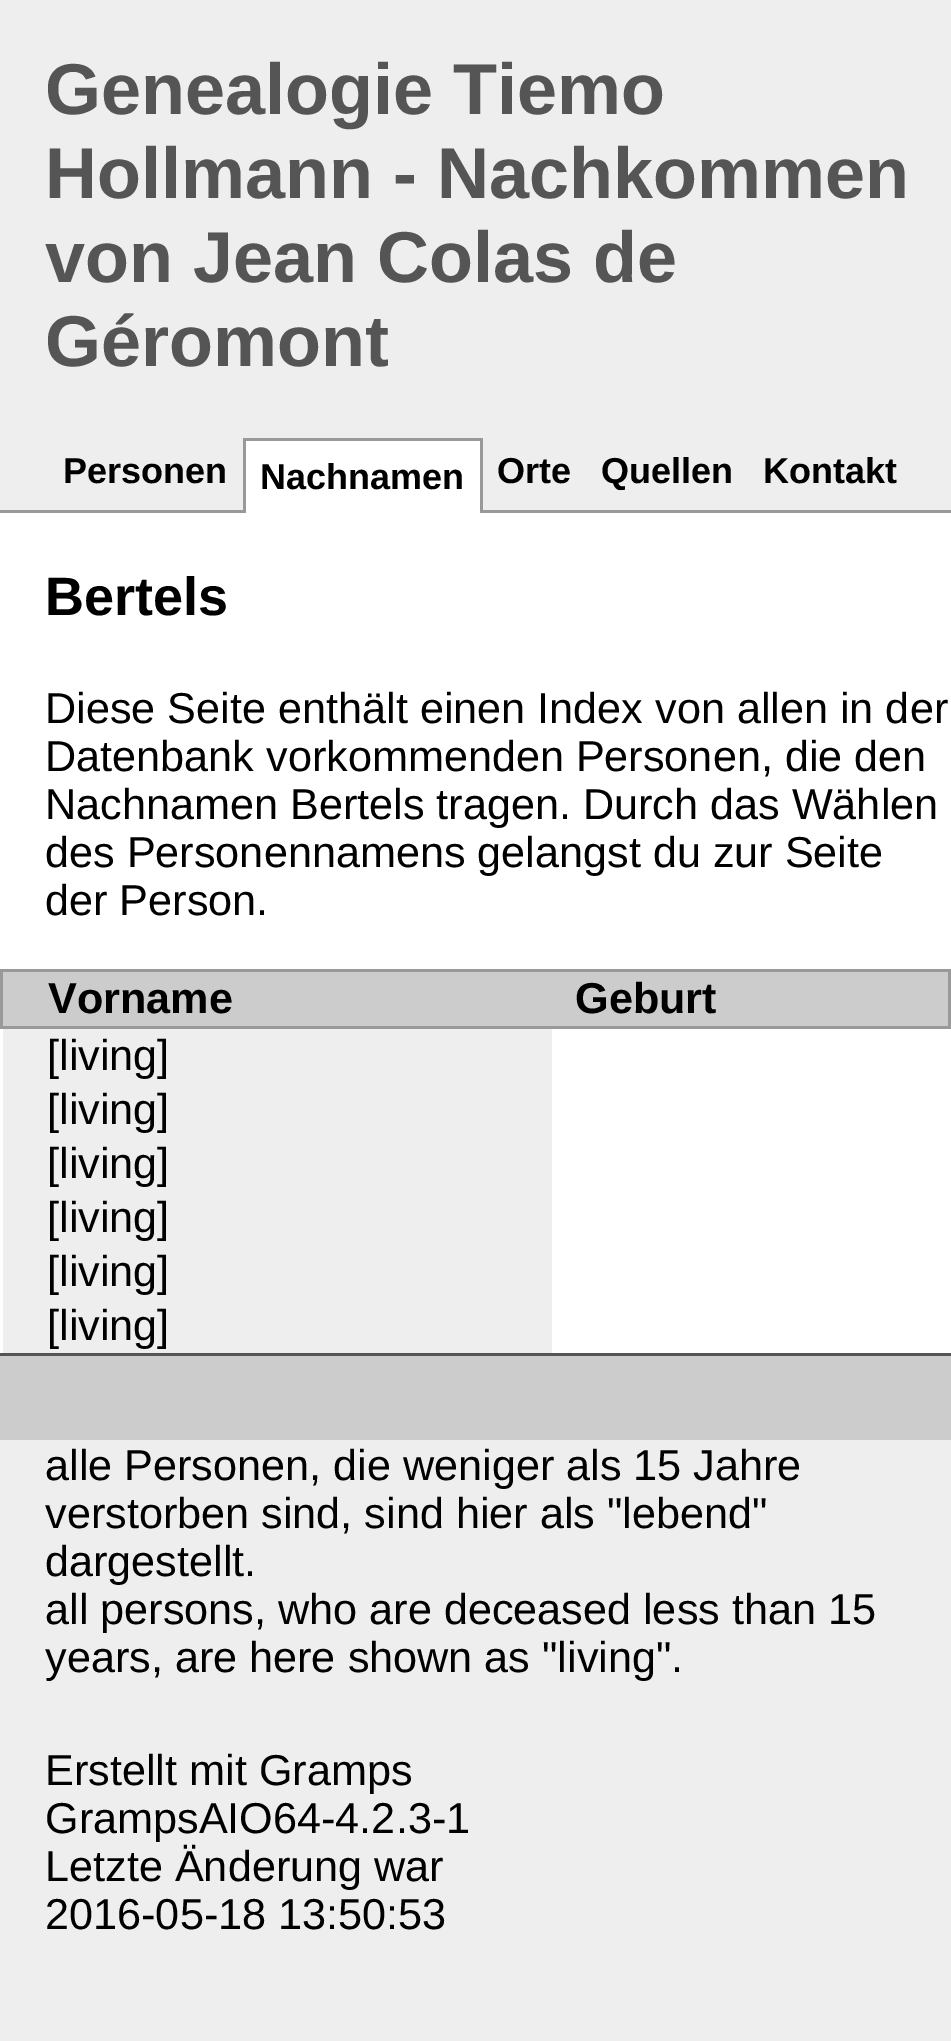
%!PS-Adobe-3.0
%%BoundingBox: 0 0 951 2041
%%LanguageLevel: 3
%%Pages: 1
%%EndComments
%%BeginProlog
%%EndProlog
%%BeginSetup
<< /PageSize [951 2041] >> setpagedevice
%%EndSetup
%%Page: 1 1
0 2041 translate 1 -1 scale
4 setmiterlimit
0.933 setgray
0 0 951 2041 rectfill
0.6 setgray
0 510 951 3 rectfill
1 setgray
246 441 234 72 rectfill
0.6 setgray
243 438 240 3 rectfill
480 438 3 75 rectfill
243 438 3 75 rectfill
1 setgray
0 513 951 840 rectfill
0.8 setgray
3 972 945 54 rectfill
0.6 setgray
0 969 951 3 rectfill
948 969 3 60 rectfill
0 1026 951 3 rectfill
0 969 3 60 rectfill
0.933 setgray
3 1029 549 324 rectfill
0.8 setgray
0 1356 951 84 rectfill
0.333 setgray
0 1353 951 3 rectfill
/LiberationSans-Bold [72 0 0 -72 0 0] selectfont
45 114 moveto (Genealogie Tiemo) show
45 198 moveto (Hollmann - Nachkommen) show
45 282 moveto (von Jean Colas de) show
45 366 moveto (Géromont) show
/LiberationSans-Bold [36 0 0 -36 0 0] selectfont
0 setgray
63 483 moveto (Personen) show
260 489 moveto (Nachnamen) show
497 483 moveto (Orte) show
601 483 moveto (Quellen) show
763 483 moveto (Kontakt) show
/LiberationSans-Bold [54 0 0 -54 0 0] selectfont
45 615 moveto (Bertels) show
/LiberationSans-Regular [43.2 0 0 -43.2 0 0] selectfont
45 723 moveto (Diese Seite enthält einen Index von allen in der) show
45 771 moveto (Datenbank vorkommenden Personen, die den) show
45 819 moveto (Nachnamen Bertels tragen. Durch das Wählen) show
45 867 moveto (des Personennamens gelangst du zur Seite) show
45 915 moveto (der Person.) show
/LiberationSans-Bold [43.2 0 0 -43.2 0 0] selectfont
48 1013 moveto (Vorname) show
575 1013 moveto (Geburt) show
/LiberationSans-Regular [43.2 0 0 -43.2 0 0] selectfont
47 1070 moveto ([living]) show
47 1124 moveto ([living]) show
47 1178 moveto ([living]) show
47 1232 moveto ([living]) show
47 1286 moveto ([living]) show
47 1340 moveto ([living]) show
45 1480 moveto (alle Personen, die weniger als 15 Jahre) show
45 1528 moveto (verstorben sind, sind hier als "lebend") show
45 1576 moveto (dargestellt.) show
45 1624 moveto (all persons, who are deceased less than 15) show
45 1672 moveto (years, are here shown as "living".) show
45 1785 moveto (Erstellt mit Gramps) show
45 1833 moveto (GrampsAIO64-4.2.3-1) show
45 1881 moveto (Letzte Änderung war) show
45 1929 moveto (2016-05-18 13:50:53) show
showpage
%%EOF
